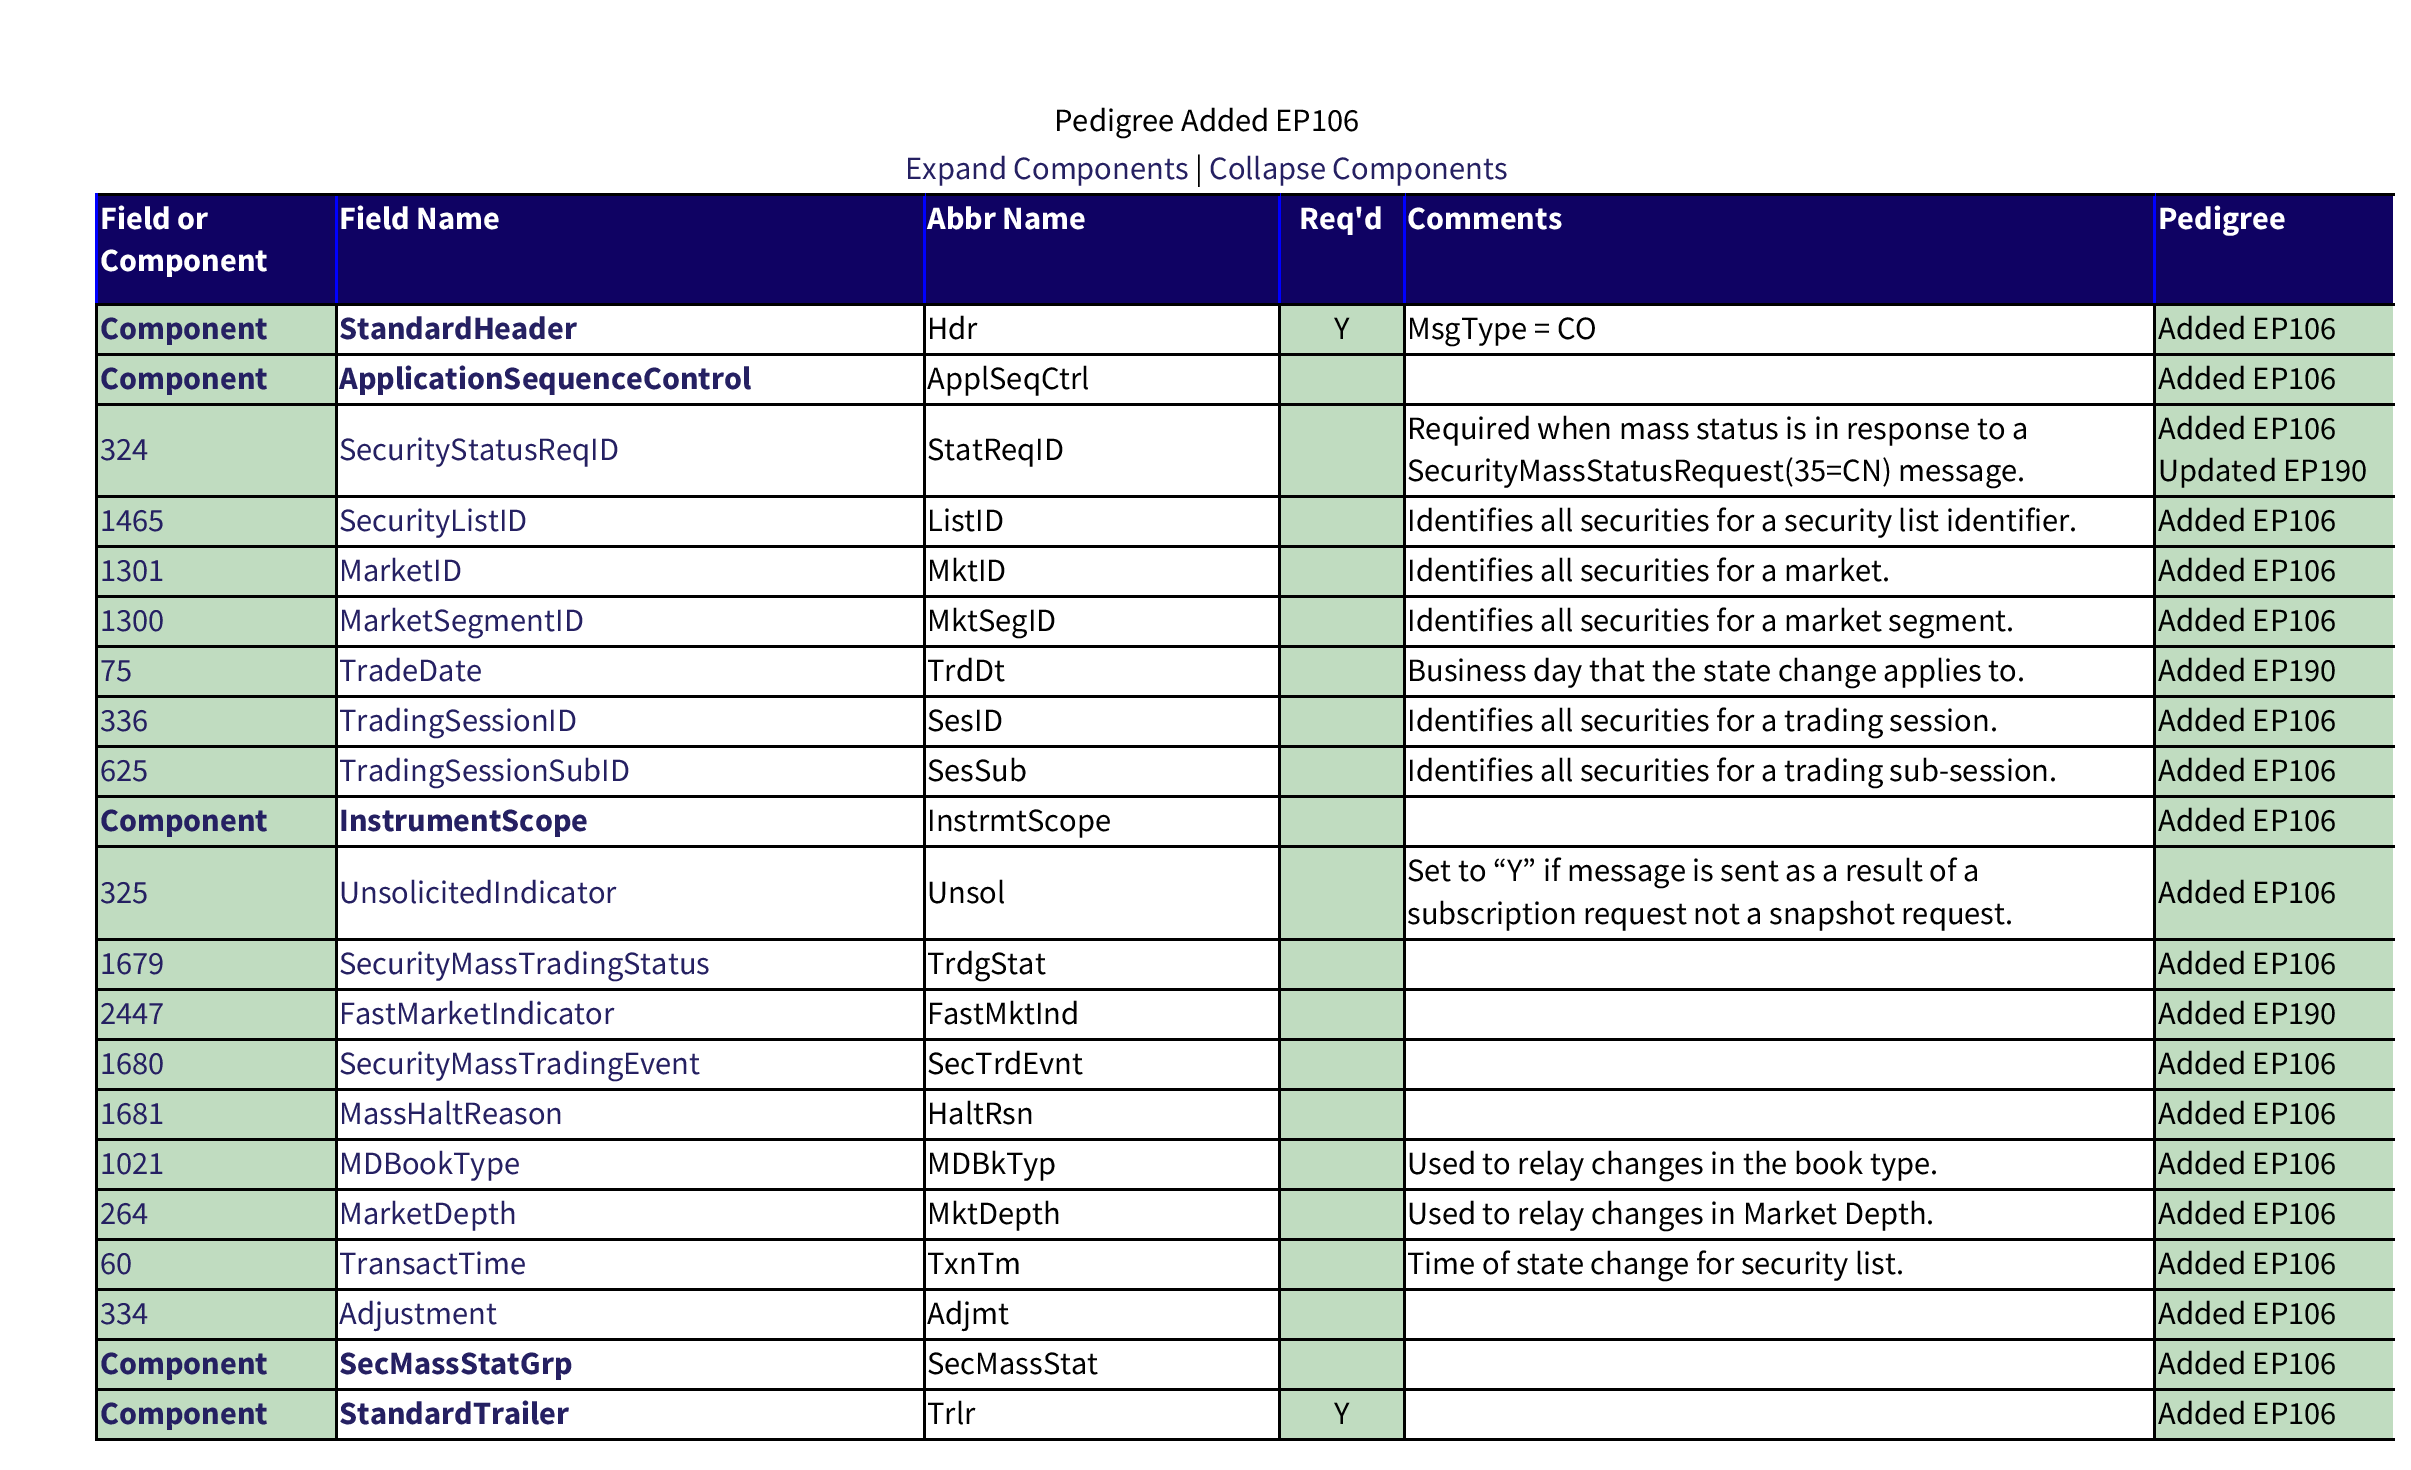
%!PS-Adobe-3.0
%%BoundingBox: 0 0 2411 1470
%%LanguageLevel: 3
%%Pages: 1
%%EndComments
%%BeginProlog
%%EndProlog
%%BeginSetup
<< /PageSize [2411 1470] >> setpagedevice
%%EndSetup
%%Page: 1 1
0 1470 translate 1 -1 scale
4 setmiterlimit
1 setgray
0 0 2411 1470 rectfill
0.059 0.008 0.388 setrgbcolor
98 196 237 107 rectfill
0 setgray
2153 193 242 3 rectfill
0 0 1 setrgbcolor
2153 193 3 112 rectfill
0 setgray
1403 193 752 3 rectfill
0 0 1 setrgbcolor
1403 193 3 112 rectfill
0 setgray
1278 193 127 3 rectfill
0 0 1 setrgbcolor
1278 193 3 112 rectfill
0 setgray
923 193 357 3 rectfill
0 0 1 setrgbcolor
923 193 3 112 rectfill
0 setgray
335 193 590 3 rectfill
335 303 590 3 rectfill
0 0 1 setrgbcolor
335 193 3 112 rectfill
0 setgray
95 193 243 3 rectfill
0 0 1 setrgbcolor
95 193 3 112 rectfill
0.059 0.008 0.388 setrgbcolor
338 196 585 107 rectfill
926 196 352 107 rectfill
1281 196 122 107 rectfill
1406 196 747 107 rectfill
2156 196 237 107 rectfill
0.753 0.863 0.753 setrgbcolor
98 306 237 47 rectfill
0 setgray
2153 303 242 3 rectfill
2153 303 3 52 rectfill
1403 303 752 3 rectfill
1403 353 992 3 rectfill
1403 303 3 52 rectfill
1278 303 127 3 rectfill
1278 303 3 52 rectfill
923 353 357 3 rectfill
923 303 357 3 rectfill
923 303 3 52 rectfill
335 353 590 3 rectfill
335 303 3 52 rectfill
95 303 243 3 rectfill
95 303 3 52 rectfill
0.753 0.863 0.753 setrgbcolor
1281 306 122 47 rectfill
2156 306 237 47 rectfill
0 setgray
2153 353 3 52 rectfill
1403 403 992 3 rectfill
1403 353 3 52 rectfill
1278 353 127 3 rectfill
1278 353 3 52 rectfill
923 403 357 3 rectfill
923 353 3 52 rectfill
335 403 590 3 rectfill
335 353 3 52 rectfill
0.753 0.863 0.753 setrgbcolor
1281 356 122 47 rectfill
98 356 237 47 rectfill
0 setgray
95 353 243 3 rectfill
95 353 3 52 rectfill
0.753 0.863 0.753 setrgbcolor
2156 356 237 47 rectfill
98 406 237 89 rectfill
0 setgray
2153 495 242 3 rectfill
2153 545 242 3 rectfill
2153 595 242 3 rectfill
2153 645 242 3 rectfill
2153 695 242 3 rectfill
2153 745 242 3 rectfill
2153 745 3 53 rectfill
1403 745 752 3 rectfill
2153 695 3 53 rectfill
1403 695 752 3 rectfill
2153 645 3 53 rectfill
1403 645 752 3 rectfill
2153 595 3 53 rectfill
1403 595 752 3 rectfill
2153 545 3 53 rectfill
1403 545 752 3 rectfill
2153 495 3 53 rectfill
1403 495 752 3 rectfill
1403 795 992 3 rectfill
1403 745 3 53 rectfill
1278 745 127 3 rectfill
1403 695 3 53 rectfill
1278 695 127 3 rectfill
1403 645 3 53 rectfill
1278 645 127 3 rectfill
1403 595 3 53 rectfill
1278 595 127 3 rectfill
1403 545 3 53 rectfill
1278 545 127 3 rectfill
1403 495 3 53 rectfill
1278 495 127 3 rectfill
1278 745 3 53 rectfill
923 745 357 3 rectfill
1278 695 3 53 rectfill
923 695 357 3 rectfill
1278 645 3 53 rectfill
923 645 357 3 rectfill
1278 595 3 53 rectfill
923 595 357 3 rectfill
1278 545 3 53 rectfill
923 545 357 3 rectfill
1278 495 3 53 rectfill
923 495 357 3 rectfill
923 795 357 3 rectfill
923 745 3 53 rectfill
335 745 590 3 rectfill
923 695 3 53 rectfill
335 695 590 3 rectfill
923 645 3 53 rectfill
335 645 590 3 rectfill
923 595 3 53 rectfill
335 595 590 3 rectfill
923 545 3 53 rectfill
335 545 590 3 rectfill
923 495 3 53 rectfill
335 495 590 3 rectfill
335 795 590 3 rectfill
335 745 3 53 rectfill
95 745 243 3 rectfill
335 695 3 53 rectfill
95 695 243 3 rectfill
335 645 3 53 rectfill
95 645 243 3 rectfill
335 595 3 53 rectfill
95 595 243 3 rectfill
335 545 3 53 rectfill
95 545 243 3 rectfill
335 495 3 53 rectfill
95 495 243 3 rectfill
335 403 3 95 rectfill
95 403 243 3 rectfill
95 745 3 53 rectfill
95 695 3 53 rectfill
95 645 3 53 rectfill
95 595 3 53 rectfill
95 545 3 53 rectfill
95 495 3 53 rectfill
95 403 3 95 rectfill
923 403 3 95 rectfill
0.753 0.863 0.753 setrgbcolor
1281 406 122 89 rectfill
0 setgray
1403 403 3 95 rectfill
1278 403 127 3 rectfill
1278 403 3 95 rectfill
0.753 0.863 0.753 setrgbcolor
2156 406 237 89 rectfill
0 setgray
2153 403 3 95 rectfill
0.753 0.863 0.753 setrgbcolor
98 498 237 47 rectfill
1281 498 122 47 rectfill
2156 498 237 47 rectfill
98 548 237 47 rectfill
1281 548 122 47 rectfill
2156 548 237 47 rectfill
98 598 237 47 rectfill
1281 598 122 47 rectfill
2156 598 237 47 rectfill
98 648 237 47 rectfill
1281 648 122 47 rectfill
2156 648 237 47 rectfill
98 698 237 47 rectfill
1281 698 122 47 rectfill
2156 698 237 47 rectfill
98 748 237 47 rectfill
1281 748 122 47 rectfill
2156 748 237 47 rectfill
1281 798 122 47 rectfill
0 setgray
2153 795 3 53 rectfill
1403 845 992 3 rectfill
1403 795 3 53 rectfill
1278 795 127 3 rectfill
1278 795 3 53 rectfill
0.753 0.863 0.753 setrgbcolor
98 798 237 47 rectfill
0 setgray
923 845 357 3 rectfill
923 795 3 53 rectfill
335 845 590 3 rectfill
335 795 3 53 rectfill
95 795 243 3 rectfill
95 795 3 53 rectfill
0.753 0.863 0.753 setrgbcolor
2156 798 237 47 rectfill
98 848 237 90 rectfill
0 setgray
2153 938 242 3 rectfill
2153 988 242 3 rectfill
2153 1038 242 3 rectfill
2153 1088 242 3 rectfill
2153 1138 242 3 rectfill
2153 1188 242 3 rectfill
2153 1238 242 3 rectfill
2153 1288 242 3 rectfill
2153 1288 3 52 rectfill
1403 1288 752 3 rectfill
2153 1238 3 52 rectfill
1403 1238 752 3 rectfill
2153 1188 3 52 rectfill
1403 1188 752 3 rectfill
2153 1138 3 52 rectfill
1403 1138 752 3 rectfill
2153 1088 3 52 rectfill
1403 1088 752 3 rectfill
2153 1038 3 52 rectfill
1403 1038 752 3 rectfill
2153 988 3 52 rectfill
1403 988 752 3 rectfill
2153 938 3 52 rectfill
1403 938 752 3 rectfill
1403 1338 992 3 rectfill
1403 1288 3 52 rectfill
1278 1288 127 3 rectfill
1403 1238 3 52 rectfill
1278 1238 127 3 rectfill
1403 1188 3 52 rectfill
1278 1188 127 3 rectfill
1403 1138 3 52 rectfill
1278 1138 127 3 rectfill
1403 1088 3 52 rectfill
1278 1088 127 3 rectfill
1403 1038 3 52 rectfill
1278 1038 127 3 rectfill
1403 988 3 52 rectfill
1278 988 127 3 rectfill
1403 938 3 52 rectfill
1278 938 127 3 rectfill
1278 1288 3 52 rectfill
923 1288 357 3 rectfill
1278 1238 3 52 rectfill
923 1238 357 3 rectfill
1278 1188 3 52 rectfill
923 1188 357 3 rectfill
1278 1138 3 52 rectfill
923 1138 357 3 rectfill
1278 1088 3 52 rectfill
923 1088 357 3 rectfill
1278 1038 3 52 rectfill
923 1038 357 3 rectfill
1278 988 3 52 rectfill
923 988 357 3 rectfill
1278 938 3 52 rectfill
923 938 357 3 rectfill
923 1338 357 3 rectfill
923 1288 3 52 rectfill
335 1288 590 3 rectfill
923 1238 3 52 rectfill
335 1238 590 3 rectfill
923 1188 3 52 rectfill
335 1188 590 3 rectfill
923 1138 3 52 rectfill
335 1138 590 3 rectfill
923 1088 3 52 rectfill
335 1088 590 3 rectfill
923 1038 3 52 rectfill
335 1038 590 3 rectfill
923 988 3 52 rectfill
335 988 590 3 rectfill
923 938 3 52 rectfill
335 938 590 3 rectfill
335 1338 590 3 rectfill
335 1288 3 52 rectfill
95 1288 243 3 rectfill
335 1238 3 52 rectfill
95 1238 243 3 rectfill
335 1188 3 52 rectfill
95 1188 243 3 rectfill
335 1138 3 52 rectfill
95 1138 243 3 rectfill
335 1088 3 52 rectfill
95 1088 243 3 rectfill
335 1038 3 52 rectfill
95 1038 243 3 rectfill
335 988 3 52 rectfill
95 988 243 3 rectfill
335 938 3 52 rectfill
95 938 243 3 rectfill
335 845 3 95 rectfill
95 845 243 3 rectfill
95 1288 3 52 rectfill
95 1238 3 52 rectfill
95 1188 3 52 rectfill
95 1138 3 52 rectfill
95 1088 3 52 rectfill
95 1038 3 52 rectfill
95 988 3 52 rectfill
95 938 3 52 rectfill
95 845 3 95 rectfill
923 845 3 95 rectfill
0.753 0.863 0.753 setrgbcolor
1281 848 122 90 rectfill
0 setgray
1403 845 3 95 rectfill
1278 845 127 3 rectfill
1278 845 3 95 rectfill
0.753 0.863 0.753 setrgbcolor
2156 848 237 90 rectfill
0 setgray
2153 845 3 95 rectfill
0.753 0.863 0.753 setrgbcolor
98 941 237 47 rectfill
1281 941 122 47 rectfill
2156 941 237 47 rectfill
98 991 237 47 rectfill
1281 991 122 47 rectfill
2156 991 237 47 rectfill
98 1041 237 47 rectfill
1281 1041 122 47 rectfill
2156 1041 237 47 rectfill
98 1091 237 47 rectfill
1281 1091 122 47 rectfill
2156 1091 237 47 rectfill
98 1141 237 47 rectfill
1281 1141 122 47 rectfill
2156 1141 237 47 rectfill
98 1191 237 47 rectfill
1281 1191 122 47 rectfill
2156 1191 237 47 rectfill
98 1241 237 47 rectfill
1281 1241 122 47 rectfill
2156 1241 237 47 rectfill
1281 1291 122 47 rectfill
98 1291 237 47 rectfill
2156 1291 237 47 rectfill
1281 1341 122 47 rectfill
0 setgray
2153 1338 3 52 rectfill
1403 1388 992 3 rectfill
1403 1338 3 52 rectfill
1278 1338 127 3 rectfill
1278 1338 3 52 rectfill
0.753 0.863 0.753 setrgbcolor
98 1341 237 47 rectfill
0 setgray
923 1388 357 3 rectfill
923 1338 3 52 rectfill
335 1388 590 3 rectfill
335 1338 3 52 rectfill
95 1338 243 3 rectfill
95 1338 3 52 rectfill
0.753 0.863 0.753 setrgbcolor
2156 1341 237 47 rectfill
98 1391 237 47 rectfill
0 setgray
2153 1438 242 3 rectfill
2153 1388 3 52 rectfill
1403 1438 752 3 rectfill
1403 1388 3 52 rectfill
1278 1438 127 3 rectfill
1278 1388 127 3 rectfill
1278 1388 3 52 rectfill
923 1438 357 3 rectfill
923 1388 3 52 rectfill
335 1438 590 3 rectfill
335 1388 3 52 rectfill
95 1388 243 3 rectfill
95 1438 243 3 rectfill
95 1388 3 52 rectfill
0.753 0.863 0.753 setrgbcolor
1281 1391 122 47 rectfill
2156 1391 237 47 rectfill
/SourceSansPro-Regular [32.5 0 0 -32.5 0 0] selectfont
0 setgray
1054 131 moveto (Pedigree Added EP106) show
0.145 0.125 0.384 setrgbcolor
905 179 moveto (Expand Components) show
0 setgray
1195 179 moveto (|) show
0.145 0.125 0.384 setrgbcolor
1209 179 moveto (Collapse Components) show
/SourceSansPro-Bold [32.5 0 0 -32.5 0 0] selectfont
1 setgray
100 229 moveto (Field or) show
100 271 moveto (Component) show
339 229 moveto (Field Name) show
927 229 moveto (Abbr Name) show
1299 229 moveto (Req'd) show
1407 229 moveto (Comments) show
2158 229 moveto (Pedigree) show
0.145 0.125 0.384 setrgbcolor
100 339 moveto (Component) show
339 339 moveto (StandardHeader) show
/SourceSansPro-Regular [32.5 0 0 -32.5 0 0] selectfont
0 setgray
927 339 moveto (Hdr) show
1334 339 moveto (Y) show
1407 339 moveto (MsgType = CO) show
2158 339 moveto (Added EP106) show
/SourceSansPro-Bold [32.5 0 0 -32.5 0 0] selectfont
0.145 0.125 0.384 setrgbcolor
339 389 moveto (ApplicationSequenceControl) show
/SourceSansPro-Regular [32.5 0 0 -32.5 0 0] selectfont
0 setgray
927 389 moveto (ApplSeqCtrl) show
/SourceSansPro-Bold [32.5 0 0 -32.5 0 0] selectfont
0.145 0.125 0.384 setrgbcolor
100 389 moveto (Component) show
/SourceSansPro-Regular [32.5 0 0 -32.5 0 0] selectfont
0 setgray
2158 389 moveto (Added EP106) show
0.145 0.125 0.384 setrgbcolor
100 460 moveto (324) show
339 460 moveto (SecurityStatusReqID) show
0 setgray
927 460 moveto (StatReqID) show
1407 439 moveto (Required when mass status is in response to a) show
1407 481 moveto (SecurityMassStatusRequest\(35=CN\) message.) show
2158 439 moveto (Added EP106) show
2158 481 moveto (Updated EP190) show
0.145 0.125 0.384 setrgbcolor
100 531 moveto (1465) show
339 531 moveto (SecurityListID) show
0 setgray
927 531 moveto (ListID) show
1407 531 moveto (Identifies all securities for a security list identifier.) show
2158 531 moveto (Added EP106) show
0.145 0.125 0.384 setrgbcolor
100 581 moveto (1301) show
339 581 moveto (MarketID) show
0 setgray
927 581 moveto (MktID) show
1407 581 moveto (Identifies all securities for a market.) show
2158 581 moveto (Added EP106) show
0.145 0.125 0.384 setrgbcolor
100 631 moveto (1300) show
339 631 moveto (MarketSegmentID) show
0 setgray
927 631 moveto (MktSegID) show
1407 631 moveto (Identifies all securities for a market segment.) show
2158 631 moveto (Added EP106) show
0.145 0.125 0.384 setrgbcolor
100 681 moveto (75) show
339 681 moveto (TradeDate) show
0 setgray
927 681 moveto (TrdDt) show
1407 681 moveto (Business day that the state change applies to.) show
2158 681 moveto (Added EP190) show
0.145 0.125 0.384 setrgbcolor
100 731 moveto (336) show
339 731 moveto (TradingSessionID) show
0 setgray
927 731 moveto (SesID) show
1407 731 moveto (Identifies all securities for a trading session.) show
2158 731 moveto (Added EP106) show
0.145 0.125 0.384 setrgbcolor
100 781 moveto (625) show
339 781 moveto (TradingSessionSubID) show
0 setgray
927 781 moveto (SesSub) show
1407 781 moveto (Identifies all securities for a trading sub-session.) show
2158 781 moveto (Added EP106) show
/SourceSansPro-Bold [32.5 0 0 -32.5 0 0] selectfont
0.145 0.125 0.384 setrgbcolor
100 831 moveto (Component) show
339 831 moveto (InstrumentScope) show
/SourceSansPro-Regular [32.5 0 0 -32.5 0 0] selectfont
0 setgray
927 831 moveto (InstrmtScope) show
2158 831 moveto (Added EP106) show
0.145 0.125 0.384 setrgbcolor
100 903 moveto (325) show
339 903 moveto (UnsolicitedIndicator) show
0 setgray
927 903 moveto (Unsol) show
1407 881 moveto (Set to “Y” if message is sent as a result of a) show
1407 924 moveto (subscription request not a snapshot request.) show
2158 903 moveto (Added EP106) show
0.145 0.125 0.384 setrgbcolor
100 974 moveto (1679) show
339 974 moveto (SecurityMassTradingStatus) show
0 setgray
927 974 moveto (TrdgStat) show
2158 974 moveto (Added EP106) show
0.145 0.125 0.384 setrgbcolor
100 1024 moveto (2447) show
339 1024 moveto (FastMarketIndicator) show
0 setgray
927 1024 moveto (FastMktInd) show
2158 1024 moveto (Added EP190) show
0.145 0.125 0.384 setrgbcolor
100 1074 moveto (1680) show
339 1074 moveto (SecurityMassTradingEvent) show
0 setgray
927 1074 moveto (SecTrdEvnt) show
2158 1074 moveto (Added EP106) show
0.145 0.125 0.384 setrgbcolor
100 1124 moveto (1681) show
339 1124 moveto (MassHaltReason) show
0 setgray
927 1124 moveto (HaltRsn) show
2158 1124 moveto (Added EP106) show
0.145 0.125 0.384 setrgbcolor
100 1174 moveto (1021) show
339 1174 moveto (MDBookType) show
0 setgray
927 1174 moveto (MDBkTyp) show
1407 1174 moveto (Used to relay changes in the book type.) show
2158 1174 moveto (Added EP106) show
0.145 0.125 0.384 setrgbcolor
100 1224 moveto (264) show
339 1224 moveto (MarketDepth) show
0 setgray
927 1224 moveto (MktDepth) show
1407 1224 moveto (Used to relay changes in Market Depth.) show
2158 1224 moveto (Added EP106) show
0.145 0.125 0.384 setrgbcolor
100 1274 moveto (60) show
339 1274 moveto (TransactTime) show
0 setgray
927 1274 moveto (TxnTm) show
1407 1274 moveto (Time of state change for security list.) show
2158 1274 moveto (Added EP106) show
0.145 0.125 0.384 setrgbcolor
339 1324 moveto (Adjustment) show
0 setgray
927 1324 moveto (Adjmt) show
0.145 0.125 0.384 setrgbcolor
100 1324 moveto (334) show
0 setgray
2158 1324 moveto (Added EP106) show
/SourceSansPro-Bold [32.5 0 0 -32.5 0 0] selectfont
0.145 0.125 0.384 setrgbcolor
100 1374 moveto (Component) show
339 1374 moveto (SecMassStatGrp) show
/SourceSansPro-Regular [32.5 0 0 -32.5 0 0] selectfont
0 setgray
927 1374 moveto (SecMassStat) show
2158 1374 moveto (Added EP106) show
/SourceSansPro-Bold [32.5 0 0 -32.5 0 0] selectfont
0.145 0.125 0.384 setrgbcolor
100 1424 moveto (Component) show
339 1424 moveto (StandardTrailer) show
/SourceSansPro-Regular [32.5 0 0 -32.5 0 0] selectfont
0 setgray
927 1424 moveto (Trlr) show
1334 1424 moveto (Y) show
2158 1424 moveto (Added EP106) show
showpage
%%EOF
